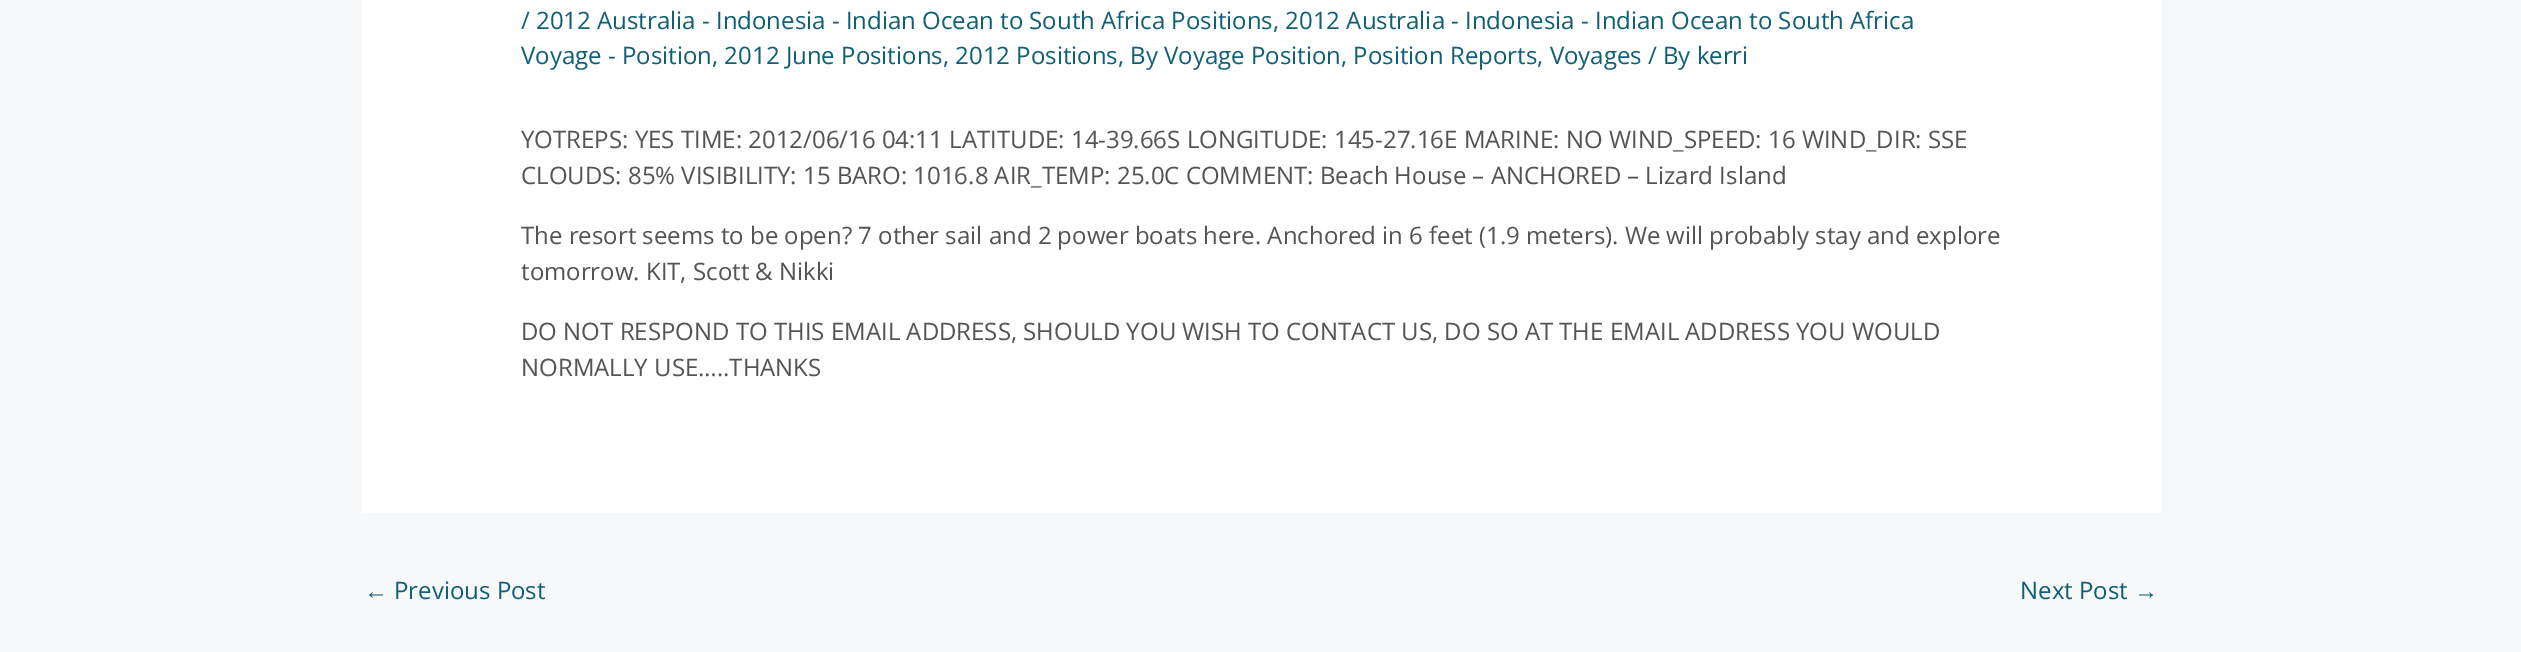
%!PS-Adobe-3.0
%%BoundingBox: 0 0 2521 652
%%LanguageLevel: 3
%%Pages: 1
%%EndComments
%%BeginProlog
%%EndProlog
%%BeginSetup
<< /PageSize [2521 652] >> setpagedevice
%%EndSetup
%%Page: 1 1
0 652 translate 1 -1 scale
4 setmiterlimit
0.969 0.973 0.976 setrgbcolor
0 0 2521 652 rectfill
1 setgray
362 0 1800 513 rectfill
/OpenSans-Regular [24 0 0 -24 0 0] selectfont
0.067 0.373 0.459 setrgbcolor
521 29 moveto (/ 2012 Australia - Indonesia - Indian Ocean to South Africa Positions, 2012 Australia - Indonesia - Indian Ocean to South Africa) show
521 64 moveto (Voyage - Position, 2012 June Positions, 2012 Positions, By Voyage Position, Position Reports, Voyages / By kerri) show
0.329 setgray
521 148 moveto (YOTREPS: YES TIME: 2012/06/16 04:11 LATITUDE: 14-39.66S LONGITUDE: 145-27.16E MARINE: NO WIND_SPEED: 16 WIND_DIR: SSE) show
521 184 moveto (CLOUDS: 85% VISIBILITY: 15 BARO: 1016.8 AIR_TEMP: 25.0C COMMENT: Beach House – ANCHORED – Lizard Island) show
521 244 moveto (The resort seems to be open? 7 other sail and 2 power boats here. Anchored in 6 feet \(1.9 meters\). We will probably stay and explore) show
521 280 moveto (tomorrow. KIT, Scott & Nikki) show
521 340 moveto (DO NOT RESPOND TO THIS EMAIL ADDRESS, SHOULD YOU WISH TO CONTACT US, DO SO AT THE EMAIL ADDRESS YOU WOULD) show
521 376 moveto (NORMALLY USE…..THANKS) show
/LiberationSans-Regular [24 0 0 -24 0 0] selectfont
0.067 0.373 0.459 setrgbcolor
364 599 moveto (←) show
/OpenSans-Regular [24 0 0 -24 0 0] selectfont
394 599 moveto (Previous Post) show
2020 599 moveto (Next Post) show
/LiberationSans-Regular [24 0 0 -24 0 0] selectfont
2134 599 moveto (→) show
showpage
%%EOF
